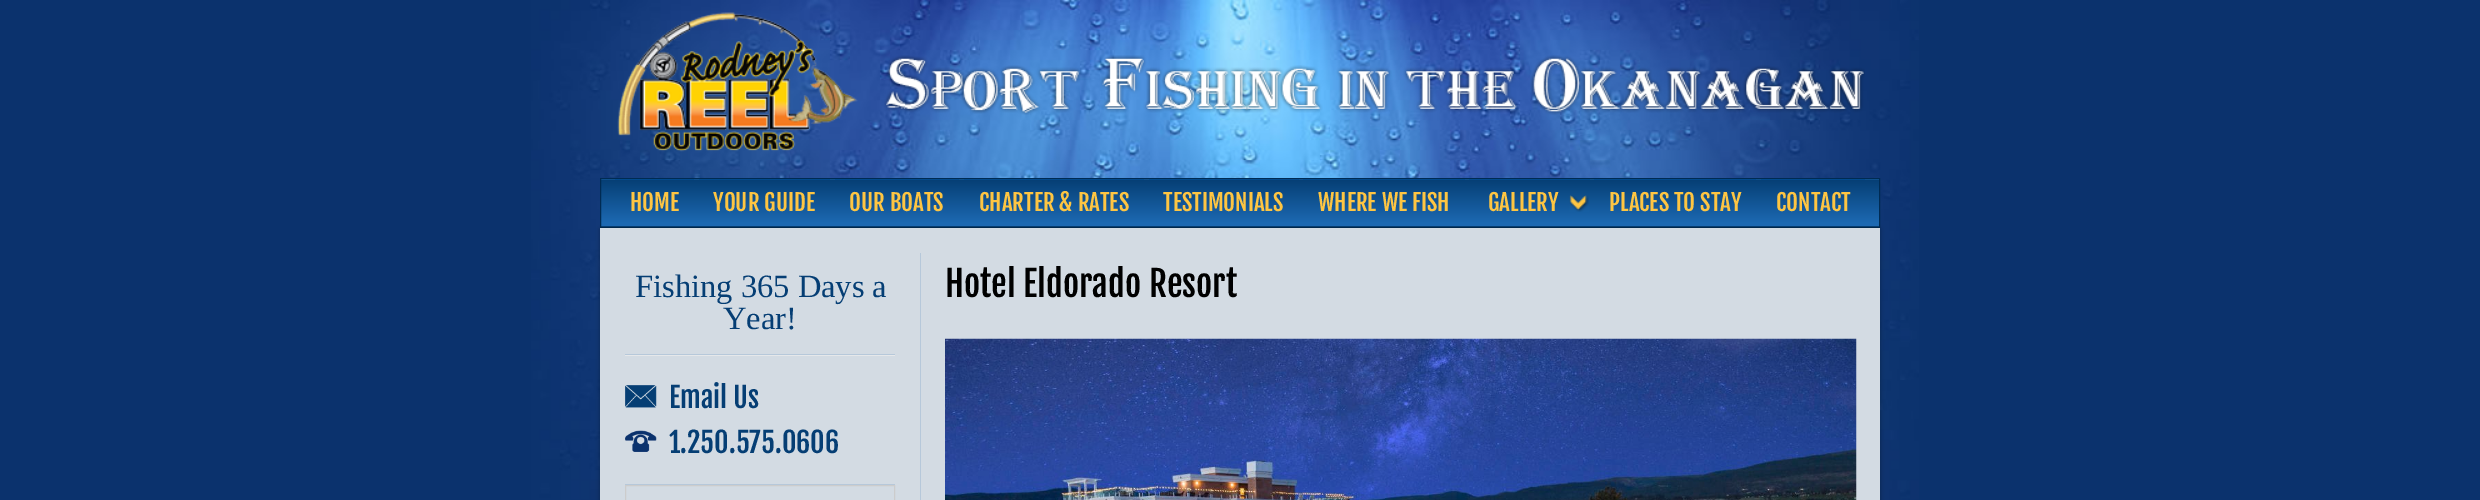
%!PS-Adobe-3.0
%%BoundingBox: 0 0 2480 500
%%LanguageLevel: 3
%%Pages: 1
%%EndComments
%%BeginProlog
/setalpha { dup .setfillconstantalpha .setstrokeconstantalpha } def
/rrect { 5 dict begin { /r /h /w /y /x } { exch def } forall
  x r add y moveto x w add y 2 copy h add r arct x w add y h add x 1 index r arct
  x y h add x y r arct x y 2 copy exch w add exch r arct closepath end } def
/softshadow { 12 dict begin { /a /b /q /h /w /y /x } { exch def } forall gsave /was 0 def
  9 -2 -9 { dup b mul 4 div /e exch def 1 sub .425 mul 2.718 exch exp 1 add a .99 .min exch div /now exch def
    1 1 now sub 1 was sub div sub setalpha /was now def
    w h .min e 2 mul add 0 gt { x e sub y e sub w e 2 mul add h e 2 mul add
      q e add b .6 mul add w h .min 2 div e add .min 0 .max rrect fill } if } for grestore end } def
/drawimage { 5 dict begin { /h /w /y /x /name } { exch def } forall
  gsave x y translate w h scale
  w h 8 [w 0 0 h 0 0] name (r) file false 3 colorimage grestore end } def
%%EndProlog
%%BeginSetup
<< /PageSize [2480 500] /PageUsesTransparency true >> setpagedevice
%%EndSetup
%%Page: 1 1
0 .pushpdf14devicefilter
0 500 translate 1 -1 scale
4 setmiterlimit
0.043 0.196 0.427 setrgbcolor
0 0 2480 500 rectfill
(images/1.raw) 531 0 1388 500 drawimage
(images/2.raw) 617 12 241 140 drawimage
(images/3.raw) 884 55 981 60 drawimage
gsave newpath 601 180 moveto 1879 180 lineto 1879 226 lineto 601 226 lineto closepath clip newpath
<< /ShadingType 2 /ColorSpace /DeviceRGB /Coords [1240 179 1240 226] /Extend [true true] /Function << /FunctionType 2 /Domain [0 1] /C0 [0.02 0.243 0.455] /C1 [0.118 0.424 0.714] /N 1 >> >> shfill grestore
gsave newpath 600 226 moveto 1880 226 lineto 1880 227 lineto 600 227 lineto closepath clip newpath
<< /ShadingType 2 /ColorSpace /DeviceRGB /Coords [1240 226 1240 274] /Extend [true true] /Function << /FunctionType 2 /Domain [0 1] /C0 [0.02 0.243 0.455] /C1 [0.118 0.424 0.714] /N 1 >> >> shfill grestore
0.078 0.365 0.631 setrgbcolor
601 179 1278 1 rectfill
0 0.169 0.325 setrgbcolor
600.5 178.5 1279 49 rectstroke
0.008 0.29 0.553 setrgbcolor
615 179 79 1 rectfill
699 179 131 1 rectfill
835 179 124 1 rectfill
964 179 180 1 rectfill
1149 179 150 1 rectfill
1303 179 162 1 rectfill
(images/4.raw) 1569 195 20 17 drawimage
1469 179 121 1 rectfill
1594 179 162 1 rectfill
1761 179 104 1 rectfill
0 setgray
600 229 1280 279 0 2.5 0.3 softshadow
0.827 0.859 0.89 setrgbcolor
600 228 1280 272 rectfill
0.714 0.784 0.855 setrgbcolor
625 354 270 1 rectfill
0.902 0.91 0.918 setrgbcolor
625 355 270 1 rectfill
0.714 0.784 0.855 setrgbcolor
625 484 270 1 rectfill
(images/5.raw) 625 385 32 23 drawimage
(images/6.raw) 625 430 32 22 drawimage
0.8 setgray
625.5 485.5 269 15 rectstroke
0.714 0.784 0.855 setrgbcolor
920 253 1 247 rectfill
(images/7.raw) 945 338 912 162 drawimage
/FjallaOne-Regular [22.75 0 0 -22.75 0 0] selectfont
0.996 0.773 0.259 setrgbcolor
630 211 moveto (HOME) show
713 211 moveto (YOUR GUIDE) show
849 211 moveto (OUR BOATS) show
979 211 moveto (CHARTER & RATES) show
1163 211 moveto (TESTIMONIALS) show
1318 211 moveto (WHERE WE FISH) show
1488 211 moveto (GALLERY) show
1609 211 moveto (PLACES TO STAY) show
1776 211 moveto (CONTACT) show
/LiberationSerif-Regular [32.5 0 0 -32.5 0 0] selectfont
0.02 0.243 0.455 setrgbcolor
635 297 moveto (Fishing 365 Days a) show
723 329 moveto (Year!) show
/FjallaOne-Regular [28 0 0 -28 0 0] selectfont
669 408 moveto (Email Us) show
669 453 moveto (1.250.575.0606) show
/FjallaOne-Regular [35 0 0 -35 0 0] selectfont
0 setgray
945 297 moveto (Hotel Eldorado Resort) show
.poppdf14devicefilter showpage
%%EOF
